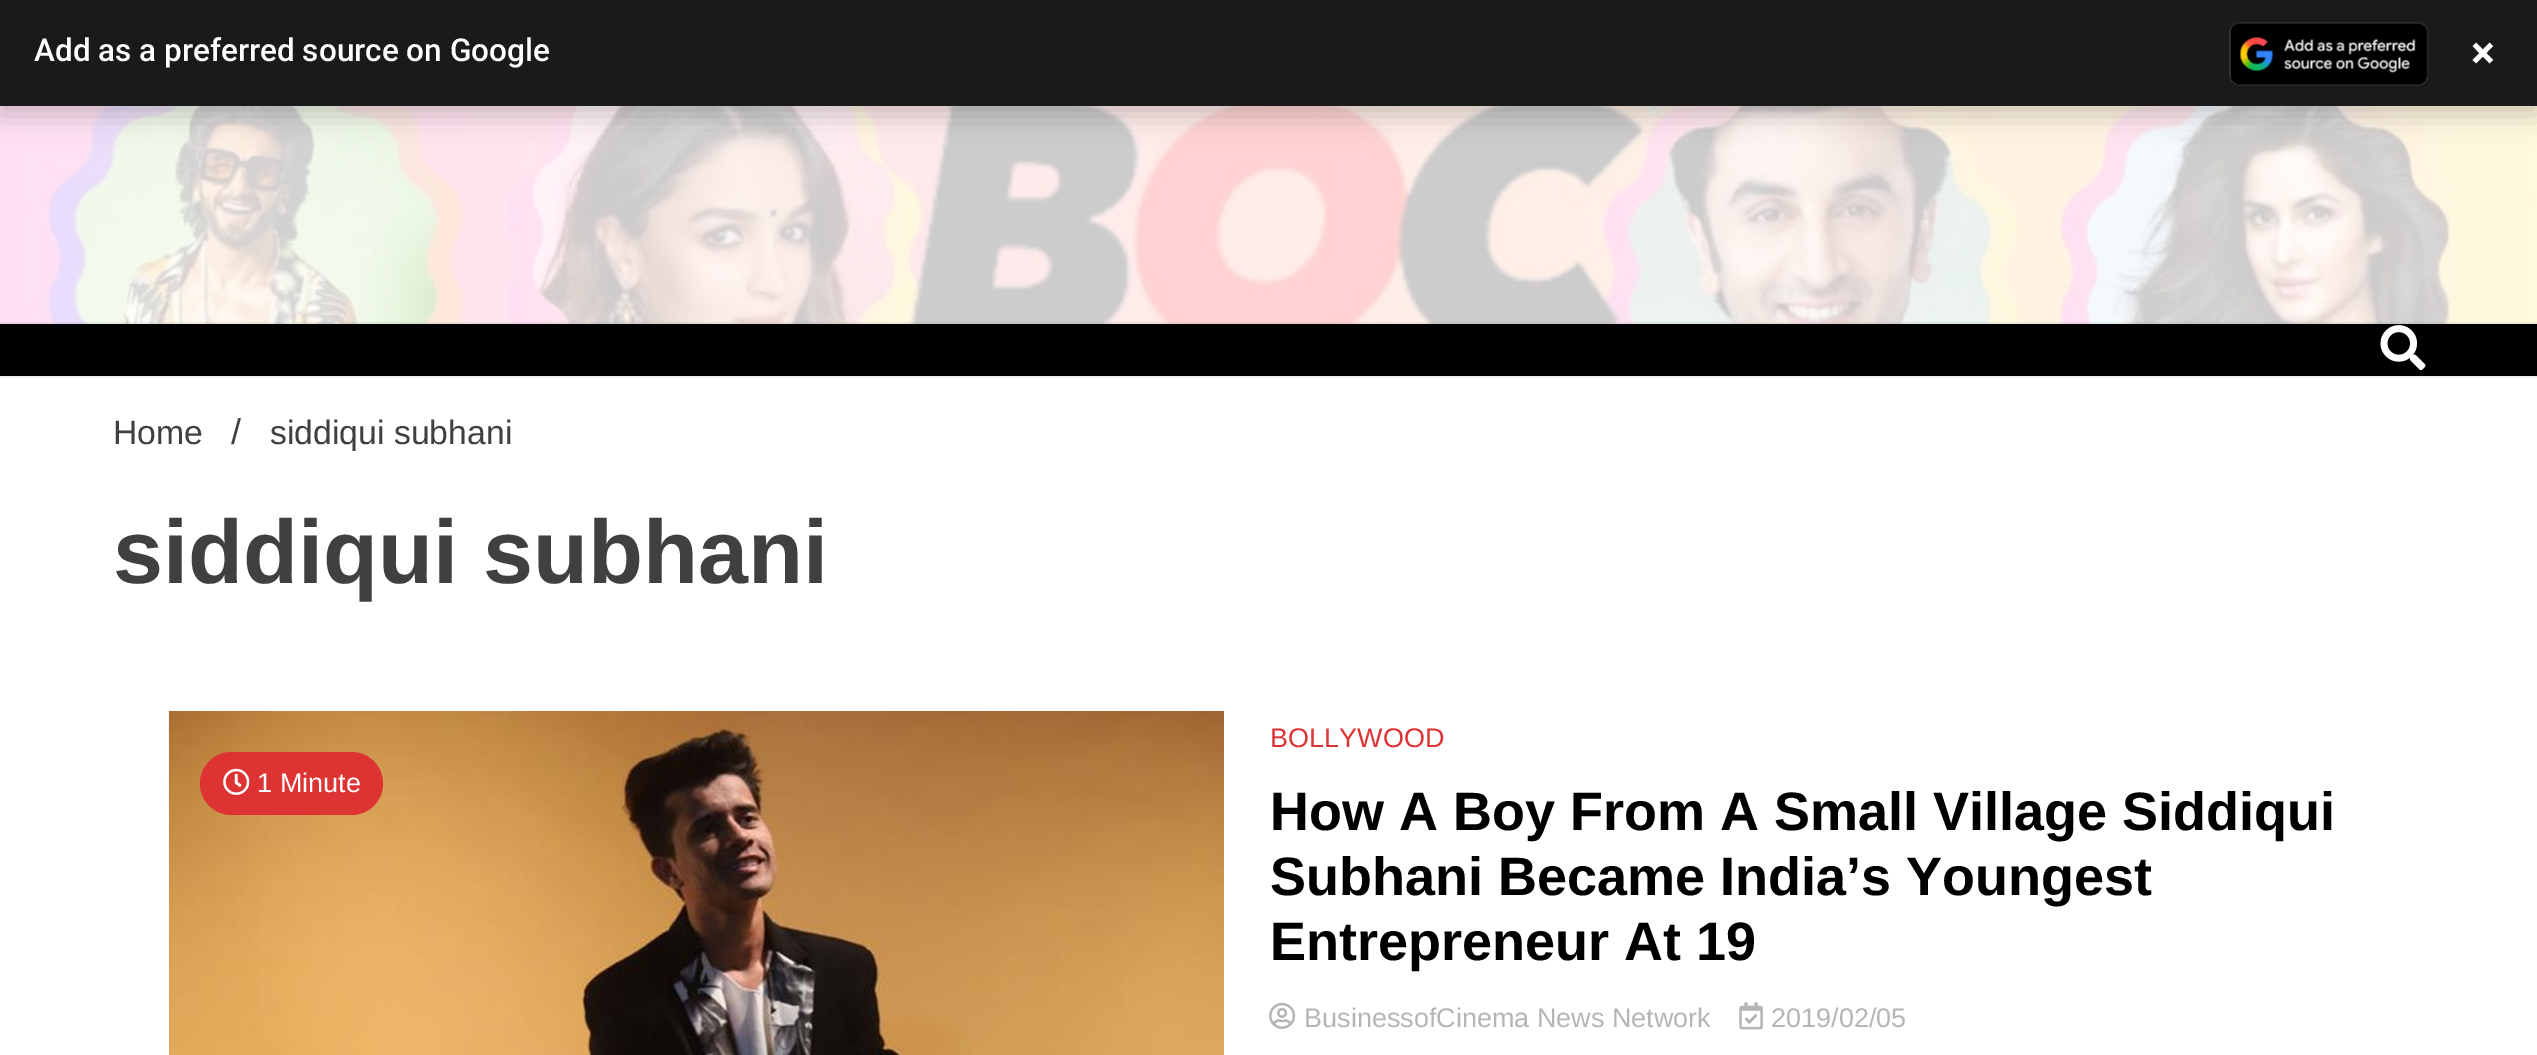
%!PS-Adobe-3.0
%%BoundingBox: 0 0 2537 1055
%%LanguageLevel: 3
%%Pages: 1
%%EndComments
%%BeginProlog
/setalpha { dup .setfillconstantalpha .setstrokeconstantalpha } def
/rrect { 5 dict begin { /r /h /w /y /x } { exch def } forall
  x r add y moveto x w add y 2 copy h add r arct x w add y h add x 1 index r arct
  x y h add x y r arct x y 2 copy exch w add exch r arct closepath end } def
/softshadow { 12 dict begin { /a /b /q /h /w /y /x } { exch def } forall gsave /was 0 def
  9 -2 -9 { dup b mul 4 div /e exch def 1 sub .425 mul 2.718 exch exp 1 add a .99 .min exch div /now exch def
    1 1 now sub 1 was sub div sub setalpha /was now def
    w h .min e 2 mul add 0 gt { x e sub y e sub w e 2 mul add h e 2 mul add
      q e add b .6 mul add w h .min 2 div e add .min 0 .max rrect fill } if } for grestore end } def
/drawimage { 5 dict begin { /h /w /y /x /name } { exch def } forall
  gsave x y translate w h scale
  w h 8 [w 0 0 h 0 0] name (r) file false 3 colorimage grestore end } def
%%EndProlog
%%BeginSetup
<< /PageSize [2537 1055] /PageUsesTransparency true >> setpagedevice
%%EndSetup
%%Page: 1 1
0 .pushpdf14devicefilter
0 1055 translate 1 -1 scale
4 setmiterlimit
1 setgray
0 0 2537 1055 rectfill
(images/2.raw) 0 106 2537 218 drawimage
0 setgray
0 7 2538 108 0 13.5 0.2 softshadow
0.102 setgray
0 0 2537 106 rectfill
(images/1.raw) 2229 22 200 64 drawimage
0.06 setalpha
0 setgray
2 setlinewidth
-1 323 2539 54 rectstroke
1 setalpha
0 324 2537 52 rectfill
(images/3.raw) 2380 325 46 46 drawimage
(images/4.raw) 168 711 1056 344 drawimage
0.867 0.2 0.2 setrgbcolor
200 752 183 63 31.5 rrect fill
(images/5.raw) 223 768 27 27 drawimage
(images/6.raw) 1269 1002 27 27 drawimage
(images/7.raw) 1739 1002 24 28 drawimage
/Roboto-Medium [31.5 0 0 -31.5 0 0] selectfont
1 setgray
34 61 moveto (Add as a preferred source on Google) show
/Roboto-Bold [45 0 0 -45 0 0] selectfont
2471 68 moveto (×) show
/LiberationSans-Regular [33.75 0 0 -33.75 0 0] selectfont
0.251 setgray
113 444 moveto (Home) show
/LiberationSans-Regular [36 0 0 -36 0 0] selectfont
231 444 moveto (/) show
/LiberationSans-Regular [33.75 0 0 -33.75 0 0] selectfont
270 444 moveto (siddiqui subhani) show
/LiberationSans-Bold [90 0 0 -90 0 0] selectfont
113 583 moveto (siddiqui subhani) show
/LiberationSans-Regular [27 0 0 -27 0 0] selectfont
1 setgray
257 792 moveto (1 Minute) show
0.867 0.2 0.2 setrgbcolor
1270 747 moveto (BOLLYWOOD) show
/LiberationSans-Bold [54 0 0 -54 0 0] selectfont
0 setgray
1270 830 moveto (How A Boy From A Small Village Siddiqui) show
1270 895 moveto (Subhani Became India’s Youngest) show
1270 960 moveto (Entrepreneur At 19) show
/LiberationSans-Regular [27 0 0 -27 0 0] selectfont
0.71 setgray
1304 1027 moveto (BusinessofCinema News Network) show
1771 1027 moveto (2019/02/05) show
.poppdf14devicefilter showpage
%%EOF
